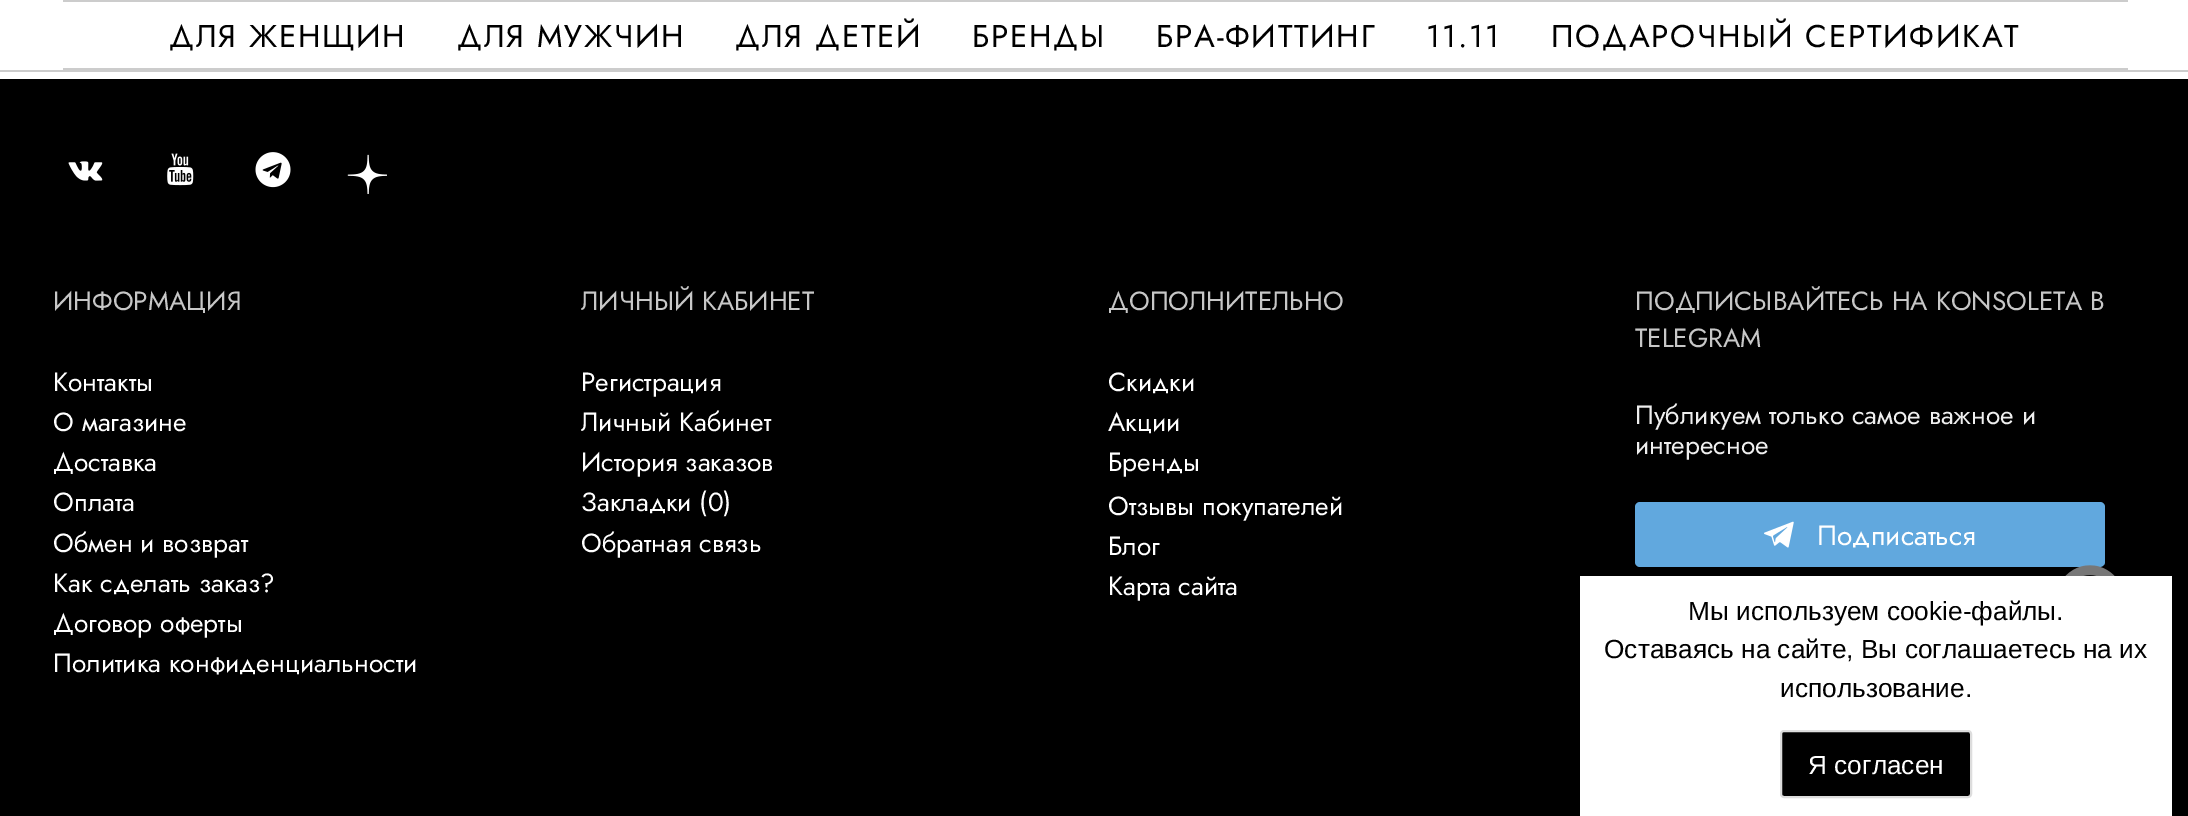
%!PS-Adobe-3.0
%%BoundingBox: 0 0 2188 816
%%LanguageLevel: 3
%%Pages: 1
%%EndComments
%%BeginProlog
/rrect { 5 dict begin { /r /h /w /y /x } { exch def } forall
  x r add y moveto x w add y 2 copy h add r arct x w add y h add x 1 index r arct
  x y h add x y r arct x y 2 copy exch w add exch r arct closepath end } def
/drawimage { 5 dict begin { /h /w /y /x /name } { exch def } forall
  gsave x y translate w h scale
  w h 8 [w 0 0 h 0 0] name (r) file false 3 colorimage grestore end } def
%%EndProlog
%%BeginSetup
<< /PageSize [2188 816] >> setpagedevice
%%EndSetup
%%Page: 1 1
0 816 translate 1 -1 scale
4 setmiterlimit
1 setgray
0 0 2188 816 rectfill
0.8 setgray
0 70 2188 2 rectfill
63 0 2065 2 rectfill
63 68 2065 2 rectfill
0 setgray
0 79 2188 737 rectfill
(images/1.raw) 68 161 35 20 drawimage
(images/2.raw) 167 153 27 33 drawimage
(images/3.raw) 255 152 36 36 drawimage
(images/4.raw) 347 154 40 40 drawimage
0.38 0.659 0.871 setrgbcolor
1635 502 470 65 5 rrect fill
(images/5.raw) 1764 521 30 27 drawimage
(images/6.raw) 2065 565 50 11 drawimage
1 setgray
1580 576 592 240 rectfill
0 setgray
1781 731 190 66 3 rrect gsave fill grestore
0.867 setgray
2 setlinewidth
stroke
/Jost-Regular [31.5 0 0 -31.5 0 0] selectfont
0 setgray
169 47 moveto 1.75 0 (ДЛЯ ЖЕНЩИН) ashow
457 47 moveto 1.75 0 (ДЛЯ МУЖЧИН) ashow
735 47 moveto 1.75 0 (ДЛЯ ДЕТЕЙ) ashow
972 47 moveto 1.75 0 (БРЕНДЫ) ashow
1156 47 moveto 1.75 0 (БРА-ФИТТИНГ) ashow
1426 47 moveto 1.75 0 (11.11) ashow
1551 47 moveto 1.75 0 (ПОДАРОЧНЫЙ СЕРТИФИКАТ) ashow
/Jost-Regular [26.25 0 0 -26.25 0 0] selectfont
0.78 setgray
53 310 moveto (ИНФОРМАЦИЯ) show
1 setgray
53 391 moveto (Контакты) show
53 431 moveto (О магазине) show
53 471 moveto (Доставка) show
53 511 moveto (Оплата) show
53 552 moveto (Обмен и возврат) show
53 592 moveto (Как сделать заказ?) show
53 632 moveto (Договор оферты) show
53 672 moveto (Политика конфиденциальности) show
0.78 setgray
581 310 moveto (ЛИЧНЫЙ КАБИНЕТ) show
1 setgray
581 391 moveto (Регистрация) show
581 431 moveto (Личный Кабинет) show
581 471 moveto (История заказов) show
581 511 moveto (Закладки \(0\)) show
581 552 moveto (Обратная связь) show
0.78 setgray
1108 310 moveto (ДОПОЛНИТЕЛЬНО) show
1 setgray
1108 391 moveto (Скидки) show
1108 431 moveto (Акции) show
1108 471 moveto (Бренды) show
1108 515 moveto (Отзывы покупателей) show
1108 555 moveto (Блог) show
1108 595 moveto (Карта сайта) show
0.78 setgray
1635 310 moveto (ПОДПИСЫВАЙТЕСЬ НА KONSOLETA В) show
1635 347 moveto (TELEGRAM) show
0.933 setgray
1635 424 moveto (Публикуем только самое важное и) show
1635 454 moveto (интересное) show
/Jost-Regular [28 0 0 -28 0 0] selectfont
1 setgray
1817 545 moveto (Подписаться) show
/LiberationSans-Regular [26.25 0 0 -26.25 0 0] selectfont
0 setgray
1688 620 moveto (Мы используем cookie-файлы.) show
1604 658 moveto (Оставаясь на сайте, Вы соглашаетесь на их) show
1780 697 moveto (использование.) show
1 setgray
1808 774 moveto (Я согласен) show
showpage
%%EOF
